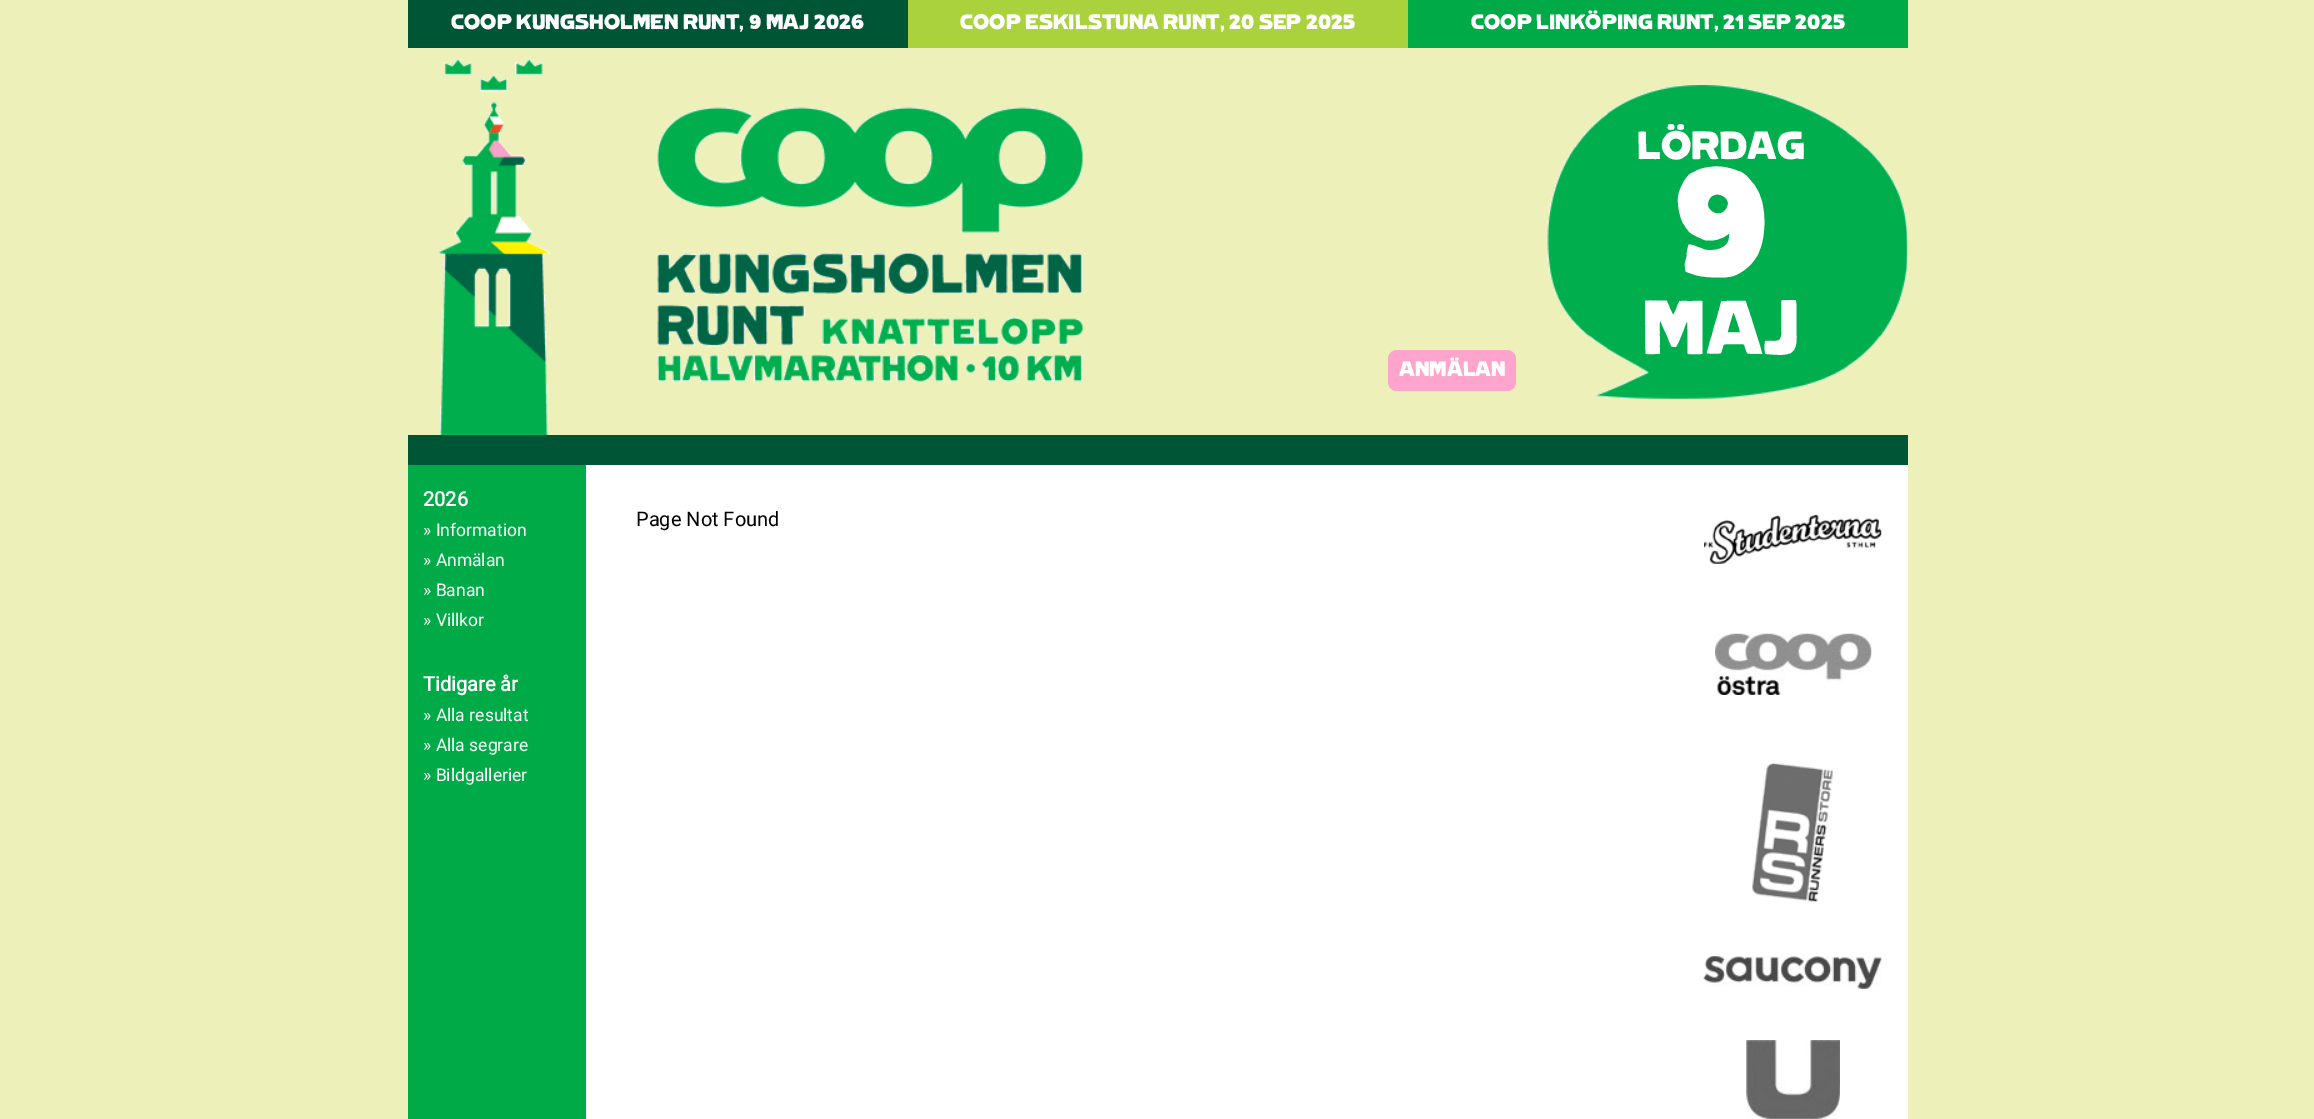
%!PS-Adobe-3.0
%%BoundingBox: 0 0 2314 1119
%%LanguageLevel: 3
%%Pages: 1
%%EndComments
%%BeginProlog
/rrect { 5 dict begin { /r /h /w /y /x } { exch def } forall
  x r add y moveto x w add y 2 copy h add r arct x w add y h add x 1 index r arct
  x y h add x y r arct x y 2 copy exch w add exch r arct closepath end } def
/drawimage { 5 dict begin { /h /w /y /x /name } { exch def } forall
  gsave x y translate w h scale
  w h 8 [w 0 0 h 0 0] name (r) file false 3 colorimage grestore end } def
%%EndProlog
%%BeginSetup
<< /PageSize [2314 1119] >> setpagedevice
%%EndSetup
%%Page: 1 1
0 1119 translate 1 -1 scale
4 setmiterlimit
0.929 0.941 0.725 setrgbcolor
0 0 2314 1119 rectfill
0 0.333 0.216 setrgbcolor
408 0 500 48 rectfill
0.667 0.824 0.235 setrgbcolor
908 0 500 48 rectfill
0 0.667 0.275 setrgbcolor
1408 0 500 48 rectfill
(images/1.raw) 438 60 645 375 drawimage
(images/2.raw) 1547 85 361 314 drawimage
1 0.647 0.804 setrgbcolor
1388 350 128 41 9 rrect fill
0 0.333 0.216 setrgbcolor
408 435 1500 30 rectfill
1 setgray
586 465 1322 654 rectfill
0 0.667 0.275 setrgbcolor
408 465 178 654 rectfill
(images/3.raw) 1704 514 178 50 drawimage
(images/4.raw) 1715 633 157 62 drawimage
(images/5.raw) 1752 763 81 139 drawimage
(images/6.raw) 1703 956 179 33 drawimage
(images/7.raw) 1746 1040 94 79 drawimage
/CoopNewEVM-Black [20 0 0 -20 0 0] selectfont
1 setgray
451 29 moveto (COOP KUNGSHOLMEN RUNT, 9 MAJ 2026) show
960 29 moveto (COOP ESKILSTUNA RUNT, 20 SEP 2025) show
1471 29 moveto (COOP LINKÖPING RUNT, 21 SEP 2025) show
/CoopNewEVM-Black [37.5 0 0 -37.5 0 0] selectfont
1637 159 moveto (LÖRDAG) show
/CoopNewEVM-Black [156 0 0 -156 0 0] selectfont
1673 278 moveto (9) show
/CoopNewEVM-Black [72.5 0 0 -72.5 0 0] selectfont
1642 354 moveto (MAJ) show
/CoopNewEVM-Black [20 0 0 -20 0 0] selectfont
1399 376 moveto (ANMÄLAN) show
/Roboto-Bold [20 0 0 -20 0 0] selectfont
423 506 moveto (2026) show
/Roboto-Regular [17.5 0 0 -17.5 0 0] selectfont
423 536 moveto (» Information) show
423 566 moveto (» Anmälan) show
423 596 moveto (» Banan) show
423 626 moveto (» Villkor) show
/Roboto-Bold [20 0 0 -20 0 0] selectfont
423 691 moveto (Tidigare år) show
/Roboto-Regular [17.5 0 0 -17.5 0 0] selectfont
423 721 moveto (» Alla resultat) show
423 751 moveto (» Alla segrare) show
423 781 moveto (» Bildgallerier) show
/Roboto-Regular [20 0 0 -20 0 0] selectfont
0 setgray
636 526 moveto (Page Not Found) show
showpage
%%EOF
